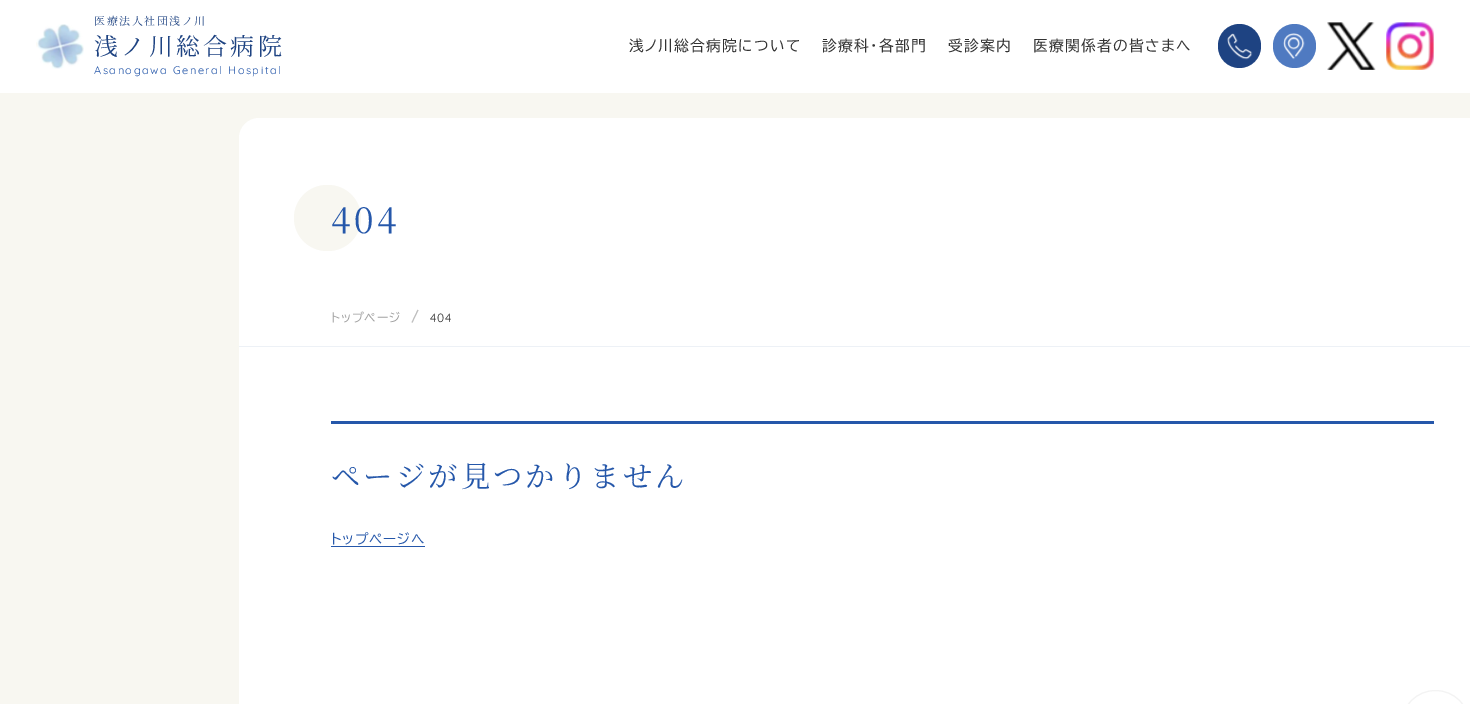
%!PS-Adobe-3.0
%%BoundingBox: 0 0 1470 704
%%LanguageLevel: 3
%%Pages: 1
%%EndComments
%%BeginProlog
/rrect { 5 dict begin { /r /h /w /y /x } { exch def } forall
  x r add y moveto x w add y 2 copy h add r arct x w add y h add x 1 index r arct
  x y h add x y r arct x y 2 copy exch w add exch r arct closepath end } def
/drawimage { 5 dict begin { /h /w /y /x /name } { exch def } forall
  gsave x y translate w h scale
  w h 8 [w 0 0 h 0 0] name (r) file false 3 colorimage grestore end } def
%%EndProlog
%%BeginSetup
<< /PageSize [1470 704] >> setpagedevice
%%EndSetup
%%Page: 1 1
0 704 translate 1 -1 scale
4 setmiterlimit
1 setgray
0 0 1470 704 rectfill
(images/1.raw) 36 24 48 45 drawimage
0.118 0.263 0.51 setrgbcolor
1218 24 43 44 21.5 rrect fill
(images/2.raw) 1227 33 26 27 drawimage
0.31 0.478 0.757 setrgbcolor
1273 24 43 44 21.5 rrect fill
(images/3.raw) 1283 33 22 27 drawimage
(images/4.raw) 1327 22 49 48 drawimage
(images/5.raw) 1386 22 48 48 drawimage
0.973 0.969 0.945 setrgbcolor
0 93 1470 611 rectfill
1 setgray
newpath 259 118 moveto 1470 118 lineto 1470 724 lineto 239 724 lineto 239 138 lineto 239 127 248 118 259 118 curveto closepath fill
0.973 0.969 0.945 setrgbcolor
294 185 67 66 33 rrect fill
0.749 setgray
newpath 418 310 moveto 412 322.5 lineto stroke
0.929 0.945 0.965 setrgbcolor
239 346 1231 1 rectfill
0.145 0.341 0.667 setrgbcolor
331 421 1103 3 rectfill
331 546 94 1 rectfill
0.953 setgray
1401.5 690.5 68 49 34 rrect stroke
/NotoSerifJP-Regular [11 0 0 -11 0 0] selectfont
0.118 0.263 0.51 setrgbcolor
94 25 moveto 1.55 0 (医療法人社団浅ノ川) ashow
/NotoSerifJP-Regular [24 0 0 -24 0 0] selectfont
94 55 moveto 3.25 0 (浅ノ川総合病院) ashow
/Quicksand-Regular [11 0 0 -11 0 0] selectfont
0.145 0.341 0.667 setrgbcolor
94 74 moveto 1.55 0 (Asanogawa General Hospital) ashow
/BIZUDPGothic-Regular [14.75 0 0 -14.75 0 0] selectfont
0.2 setgray
629 51 moveto 1.25 0 (浅ノ川総合病院について) ashow
822 51 moveto 1.25 0 (診療科・各部門) ashow
948 51 moveto 1.25 0 (受診案内) ashow
1033 51 moveto 1.25 0 (医療関係者の皆さまへ) ashow
/NotoSerifJP-Regular [35 0 0 -35 0 0] selectfont
0.145 0.341 0.667 setrgbcolor
331 233 moveto 3.5 0 (404) ashow
/BIZUDPGothic-Regular [12 0 0 -12 0 0] selectfont
0.627 setgray
331 322 moveto 0.75 0 (トップページ) ashow
/Quicksand-Regular [12 0 0 -12 0 0] selectfont
0.2 setgray
430 322 moveto 0.75 0 (404) ashow
/NotoSerifJP-Regular [29.4 0 0 -29.4 0 0] selectfont
0.145 0.341 0.667 setrgbcolor
331 487 moveto 3 0 (ページが見つかりません) ashow
/BIZUDPGothic-Regular [13.75 0 0 -13.75 0 0] selectfont
331 544 moveto 0.75 0 (トップページへ) ashow
showpage
%%EOF
